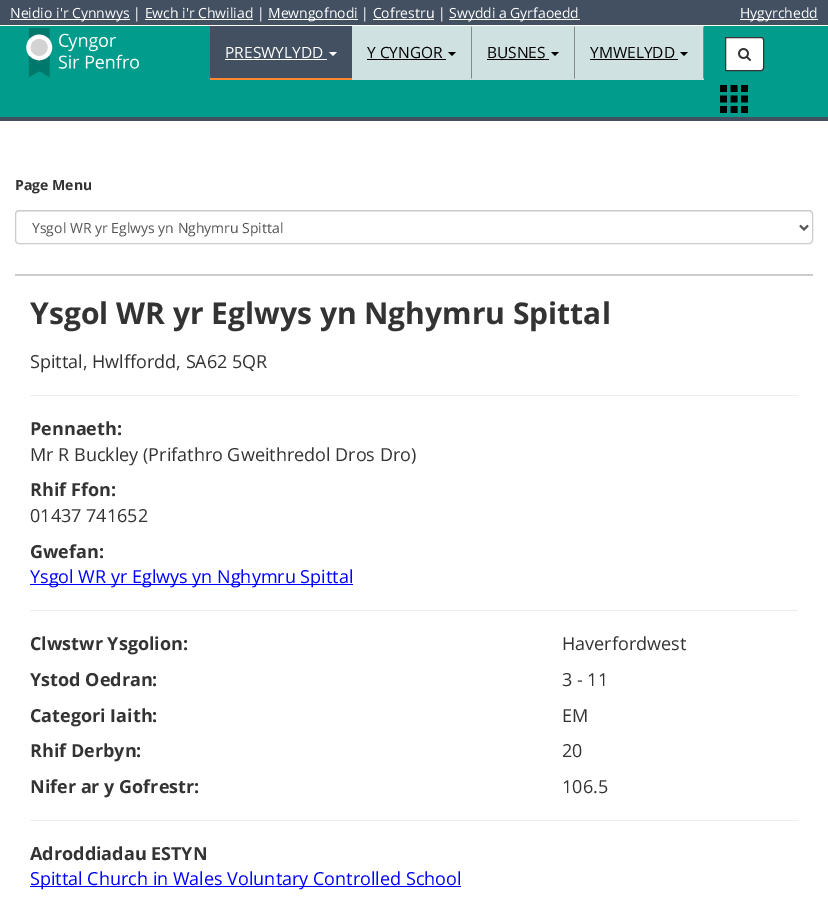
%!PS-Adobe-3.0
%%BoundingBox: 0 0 828 905
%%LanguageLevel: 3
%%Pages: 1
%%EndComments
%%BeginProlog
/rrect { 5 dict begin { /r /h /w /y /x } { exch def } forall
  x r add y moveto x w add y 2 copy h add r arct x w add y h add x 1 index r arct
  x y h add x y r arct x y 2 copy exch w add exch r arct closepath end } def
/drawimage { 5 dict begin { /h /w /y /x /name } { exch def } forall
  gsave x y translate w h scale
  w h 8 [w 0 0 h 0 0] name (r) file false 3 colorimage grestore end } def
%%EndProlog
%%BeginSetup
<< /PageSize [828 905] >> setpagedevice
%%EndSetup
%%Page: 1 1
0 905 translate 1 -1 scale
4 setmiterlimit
1 setgray
0 0 828 905 rectfill
0.004 0.612 0.549 setrgbcolor
0 26 828 91 rectfill
0.263 0.314 0.38 setrgbcolor
0 117 828 4 rectfill
0 0 828 25 rectfill
1 setgray
10 19 120 1 rectfill
268 19 90 1 rectfill
449 19 131 1 rectfill
740 19 78 1 rectfill
145 19 108 1 rectfill
373 19 61 1 rectfill
(images/1.raw) 26 28 113 50 drawimage
0.263 0.314 0.38 setrgbcolor
210 26 142 52 rectfill
1 0.529 0.184 setrgbcolor
210 78 142 2 rectfill
1 setgray
225 59 102 1 rectfill
newpath 329 52 moveto 337 52 lineto 333 56 lineto closepath fill
0.816 0.882 0.882 setrgbcolor
352 26 352 54 rectfill
0.533 setgray
newpath 472 26 moveto 472 80 lineto 471 78 lineto 471 28 lineto closepath fill
0.816 0.882 0.882 setrgbcolor
newpath 472 80 moveto 352 80 lineto 352 78 lineto 471 78 lineto closepath fill
0 setgray
367 59 79 1 rectfill
newpath 448 52 moveto 456 52 lineto 452 56 lineto closepath fill
0.533 setgray
newpath 575 26 moveto 575 80 lineto 574 78 lineto 574 28 lineto closepath fill
0.816 0.882 0.882 setrgbcolor
newpath 575 80 moveto 472 80 lineto 472 78 lineto 574 78 lineto closepath fill
0 setgray
487 59 62 1 rectfill
newpath 551 52 moveto 559 52 lineto 555 56 lineto closepath fill
0.533 setgray
newpath 704 26 moveto 704 80 lineto 703 78 lineto 703 28 lineto closepath fill
0.816 0.882 0.882 setrgbcolor
newpath 704 80 moveto 575 80 lineto 575 78 lineto 703 78 lineto closepath fill
0 setgray
590 59 88 1 rectfill
newpath 680 52 moveto 688 52 lineto 684 56 lineto closepath fill
1 setgray
newpath 725.5 37.5 moveto 761 37.5 lineto 762.5 37.5 763.5 38.5 763.5 40 curveto 763.5 68 lineto 763.5 69.5 762.5 70.5 761 70.5 curveto 725.5 70.5 lineto closepath gsave fill grestore
0.2 setgray
stroke
(images/2.raw) 738 48 13 13 drawimage
(images/3.raw) 720 85 28 28 drawimage
0.925 setgray
newpath 19 212 moveto 809 212 lineto 811 212 812 213 812 215 curveto 812 213 811 211 809 211 curveto 19 211 lineto 17 211 16 213 16 215 curveto 16 213 17 212 19 212 curveto closepath fill
0.8 setgray
15.5 210.5 797 33 3.5 rrect stroke
0.333 setgray
2 setlinewidth
newpath 800 225.5 moveto 804 229.5 lineto 808 225.5 lineto stroke
0.8 setgray
15 274 798 2 rectfill
0.933 setgray
30 395 768 1 rectfill
0 0 1 setrgbcolor
30 584 323 1 rectfill
0.933 setgray
30 610 768 1 rectfill
30 820 768 1 rectfill
0 0 1 setrgbcolor
30 886 431 1 rectfill
/OpenSans-Regular [14 0 0 -14 0 0] selectfont
1 setgray
10 18 moveto (Neidio i'r Cynnwys | Ewch i'r Chwiliad |) show
268 18 moveto (Mewngofnodi | Cofrestru |) show
449 18 moveto (Swyddi a Gyrfaoedd) show
740 18 moveto (Hygyrchedd) show
/OpenSans-Regular [15.5 0 0 -15.5 0 0] selectfont
225 58 moveto (PRESWYLYDD) show
0 setgray
367 58 moveto (Y CYNGOR) show
487 58 moveto (BUSNES) show
590 58 moveto (YMWELYDD) show
/OpenSans-Bold [14 0 0 -14 0 0] selectfont
0.2 setgray
15 190 moveto (Page Menu) show
/OpenSans-Regular [14 0 0 -14 0 0] selectfont
0.333 setgray
32 233 moveto (Ysgol WR yr Eglwys yn Nghymru Spittal) show
/OpenSans-Bold [30 0 0 -30 0 0] selectfont
0.2 setgray
30 324 moveto (Ysgol WR yr Eglwys yn Nghymru Spittal) show
/OpenSans-Regular [18 0 0 -18 0 0] selectfont
30 368 moveto (Spittal, Hwlffordd, SA62 5QR) show
/OpenSans-Bold [18 0 0 -18 0 0] selectfont
30 435 moveto (Pennaeth:) show
/OpenSans-Regular [18 0 0 -18 0 0] selectfont
30 461 moveto (Mr R Buckley \(Prifathro Gweithredol Dros Dro\)) show
/OpenSans-Bold [18 0 0 -18 0 0] selectfont
30 496 moveto (Rhif Ffon:) show
/OpenSans-Regular [18 0 0 -18 0 0] selectfont
30 522 moveto (01437 741652) show
/OpenSans-Bold [18 0 0 -18 0 0] selectfont
30 558 moveto (Gwefan:) show
/OpenSans-Regular [18 0 0 -18 0 0] selectfont
0 0 1 setrgbcolor
30 583 moveto (Ysgol WR yr Eglwys yn Nghymru Spittal) show
/OpenSans-Bold [18 0 0 -18 0 0] selectfont
0.2 setgray
30 650 moveto (Clwstwr Ysgolion:) show
/OpenSans-Regular [18 0 0 -18 0 0] selectfont
562 650 moveto (Haverfordwest) show
/OpenSans-Bold [18 0 0 -18 0 0] selectfont
30 686 moveto (Ystod Oedran:) show
/OpenSans-Regular [18 0 0 -18 0 0] selectfont
562 686 moveto (3 - 11) show
/OpenSans-Bold [18 0 0 -18 0 0] selectfont
30 722 moveto (Categori Iaith:) show
/OpenSans-Regular [18 0 0 -18 0 0] selectfont
562 722 moveto (EM) show
/OpenSans-Bold [18 0 0 -18 0 0] selectfont
30 757 moveto (Rhif Derbyn:) show
/OpenSans-Regular [18 0 0 -18 0 0] selectfont
562 757 moveto (20) show
/OpenSans-Bold [18 0 0 -18 0 0] selectfont
30 793 moveto (Nifer ar y Gofrestr:) show
/OpenSans-Regular [18 0 0 -18 0 0] selectfont
562 793 moveto (106.5) show
/OpenSans-Bold [18 0 0 -18 0 0] selectfont
30 860 moveto (Adroddiadau ESTYN) show
/OpenSans-Regular [18 0 0 -18 0 0] selectfont
0 0 1 setrgbcolor
30 885 moveto (Spittal Church in Wales Voluntary Controlled School) show
showpage
%%EOF
